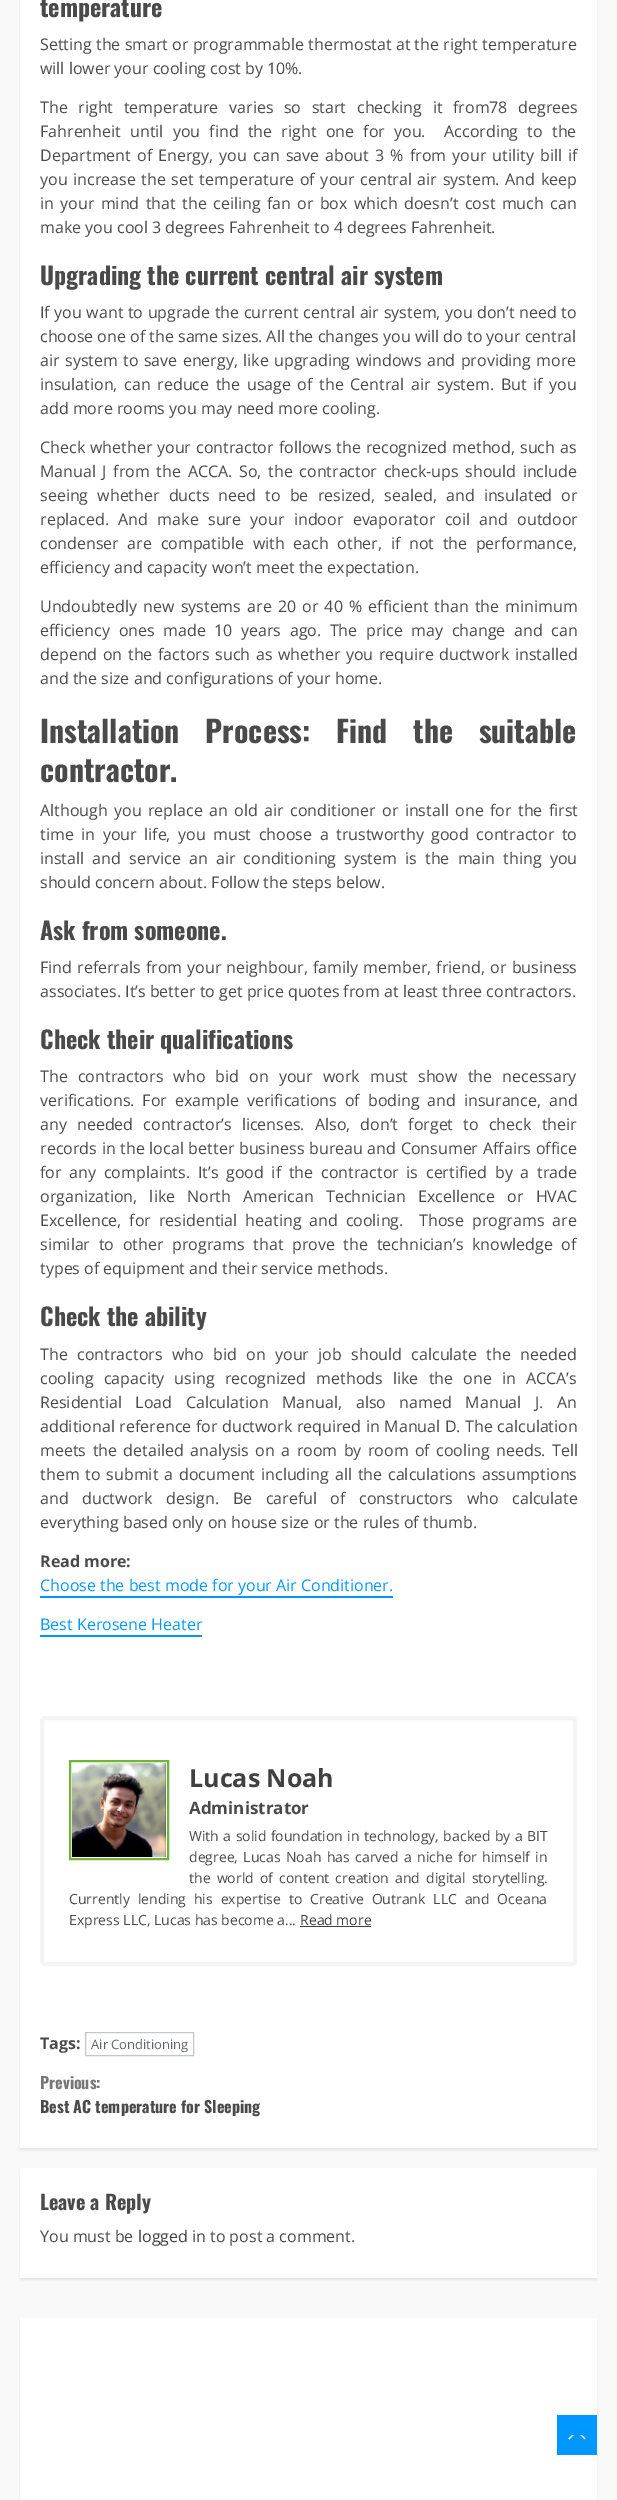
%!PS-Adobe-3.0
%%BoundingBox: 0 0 617 2500
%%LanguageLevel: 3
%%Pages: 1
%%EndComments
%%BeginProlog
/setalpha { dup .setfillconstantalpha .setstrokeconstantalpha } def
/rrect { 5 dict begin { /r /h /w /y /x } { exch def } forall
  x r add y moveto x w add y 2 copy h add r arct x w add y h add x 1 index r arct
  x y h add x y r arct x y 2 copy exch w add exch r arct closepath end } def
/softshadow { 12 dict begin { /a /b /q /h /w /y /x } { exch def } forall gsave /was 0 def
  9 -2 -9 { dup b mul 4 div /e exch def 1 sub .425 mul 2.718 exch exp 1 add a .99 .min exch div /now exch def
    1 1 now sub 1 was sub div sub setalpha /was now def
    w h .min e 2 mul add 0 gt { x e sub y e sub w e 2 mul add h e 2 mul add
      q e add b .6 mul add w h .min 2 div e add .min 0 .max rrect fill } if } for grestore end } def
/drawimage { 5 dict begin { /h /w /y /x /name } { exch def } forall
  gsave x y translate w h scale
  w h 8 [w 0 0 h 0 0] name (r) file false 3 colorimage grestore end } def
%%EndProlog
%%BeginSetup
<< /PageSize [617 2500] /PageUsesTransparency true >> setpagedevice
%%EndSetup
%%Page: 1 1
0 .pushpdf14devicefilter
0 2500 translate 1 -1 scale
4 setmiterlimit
0.976 setgray
0 0 617 2500 rectfill
0 setgray
20 -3 577 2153 0 1 0.08 softshadow
1 setgray
20 0 577 2148 rectfill
0 0.596 0.996 setrgbcolor
40 1596 353 2 rectfill
40 1635 162 2 rectfill
0.957 setgray
4 setlinewidth
42 1718 533 246 3 rrect stroke
0.435 0.71 0.22 setrgbcolor
2 setlinewidth
70 1761 98 98 rectstroke
(images/1.raw) 72 1763 94 94 drawimage
0.251 setgray
300 1926 71 1 rectfill
0.769 0.773 0.784 setrgbcolor
1 setlinewidth
85.5 2032.5 108 23 rectstroke
0 setgray
20 2170 577 110 0 1 0.08 softshadow
1 setgray
20 2168 577 110 rectfill
0 setgray
20 2320 577 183 0 1 0.08 softshadow
1 setgray
20 2318 577 182 rectfill
0 0.596 0.996 setrgbcolor
557 2415 40 40 rectfill
1 setgray
newpath 572 2440 moveto 575 2440 583.5 2441 585.5 2438.5 curveto 582 2435 lineto 572 2435 lineto 568.5 2438.5 lineto 569 2439.5 570.5 2440 572 2440 curveto closepath fill
0 0.596 0.996 setrgbcolor
newpath 587 2442 moveto 567 2442 lineto 577 2432 lineto closepath fill
/Oswald-Bold [24 0 0 -24 0 0] selectfont
0.29 setgray
40 17 moveto (temperature) show
/OpenSans-Regular [16 0 0 -16 0 0] selectfont
40 50 moveto (Setting the smart or programmable thermostat at the right temperature) show
40 74 moveto (will lower your cooling cost by 10%.) show
40 113 moveto 6.5 0 32 (The right temperature varies so start checking it from78 degrees) widthshow
40 137 moveto 5.1 0 32 (Fahrenheit until you find the right one for you.  According to the) widthshow
40 161 moveto 2 0 32 (Department of Energy, you can save about 3 % from your utility bill if) widthshow
40 185 moveto 1.5 0 32 (you increase the set temperature of your central air system. And keep) widthshow
40 209 moveto 2.25 0 32 (in your mind that the ceiling fan or box which doesn’t cost much can) widthshow
40 233 moveto (make you cool 3 degrees Fahrenheit to 4 degrees Fahrenheit.) show
/Oswald-Bold [24 0 0 -24 0 0] selectfont
40 285 moveto (Upgrading the current central air system) show
/OpenSans-Regular [16 0 0 -16 0 0] selectfont
40 318 moveto 0.4 0 32 (If you want to upgrade the current central air system, you don’t need to) widthshow
40 342 moveto (choose one of the same sizes. All the changes you will do to your central) show
40 366 moveto 1.25 0 32 (air system to save energy, like upgrading windows and providing more) widthshow
40 390 moveto 2.5 0 32 (insulation, can reduce the usage of the Central air system. But if you) widthshow
40 414 moveto (add more rooms you may need more cooling.) show
40 453 moveto 0.75 0 32 (Check whether your contractor follows the recognized method, such as) widthshow
40 477 moveto 2.5 0 32 (Manual J from the ACCA. So, the contractor check-ups should include) widthshow
40 501 moveto 5 0 32 (seeing whether ducts need to be resized, sealed, and insulated or) widthshow
40 525 moveto 5.25 0 32 (replaced. And make sure your indoor evaporator coil and outdoor) widthshow
40 549 moveto 4.5 0 32 (condenser are compatible with each other, if not the performance,) widthshow
40 573 moveto (efficiency and capacity won’t meet the expectation.) show
40 612 moveto 2 0 32 (Undoubtedly new systems are 20 or 40 % efficient than the minimum) widthshow
40 636 moveto 4.4 0 32 (efficiency ones made 10 years ago. The price may change and can) widthshow
40 660 moveto 1.5 0 32 (depend on the factors such as whether you require ductwork installed) widthshow
40 684 moveto (and the size and configurations of your home.) show
/Oswald-Bold [30 0 0 -30 0 0] selectfont
40 743 moveto 18 0 32 (Installation Process: Find the suitable) widthshow
40 782 moveto (contractor.) show
/OpenSans-Regular [16 0 0 -16 0 0] selectfont
40 816 moveto 2.25 0 32 (Although you replace an old air conditioner or install one for the first) widthshow
40 840 moveto 3.4 0 32 (time in your life, you must choose a trustworthy good contractor to) widthshow
40 864 moveto 4 0 32 (install and service an air conditioning system is the main thing you) widthshow
40 888 moveto (should concern about. Follow the steps below.) show
/Oswald-Bold [24 0 0 -24 0 0] selectfont
40 940 moveto (Ask from someone.) show
/OpenSans-Regular [16 0 0 -16 0 0] selectfont
40 973 moveto 1 0 32 (Find referrals from your neighbour, family member, friend, or business) widthshow
40 997 moveto (associates. It’s better to get price quotes from at least three contractors.) show
/Oswald-Bold [24 0 0 -24 0 0] selectfont
40 1049 moveto (Check their qualifications) show
/OpenSans-Regular [16 0 0 -16 0 0] selectfont
40 1082 moveto 6 0 32 (The contractors who bid on your work must show the necessary) widthshow
40 1106 moveto 3.75 0 32 (verifications. For example verifications of boding and insurance, and) widthshow
40 1130 moveto 6 0 32 (any needed contractor’s licenses. Also, don’t forget to check their) widthshow
40 1154 moveto 0.6 0 32 (records in the local better business bureau and Consumer Affairs office) widthshow
40 1178 moveto 3.6 0 32 (for any complaints. It’s good if the contractor is certified by a trade) widthshow
40 1202 moveto 8 0 32 (organization, like North American Technician Excellence or HVAC) widthshow
40 1226 moveto 3.75 0 32 (Excellence, for residential heating and cooling.  Those programs are) widthshow
40 1250 moveto 4.5 0 32 (similar to other programs that prove the technician’s knowledge of) widthshow
40 1274 moveto (types of equipment and their service methods.) show
/Oswald-Bold [24 0 0 -24 0 0] selectfont
40 1326 moveto (Check the ability) show
/OpenSans-Regular [16 0 0 -16 0 0] selectfont
40 1360 moveto 5.25 0 32 (The contractors who bid on your job should calculate the needed) widthshow
40 1384 moveto 6 0 32 (cooling capacity using recognized methods like the one in ACCA’s) widthshow
40 1408 moveto 9.5 0 32 (Residential Load Calculation Manual, also named Manual J. An) widthshow
40 1432 moveto 0.5 0 32 (additional reference for ductwork required in Manual D. The calculation) widthshow
40 1456 moveto 2.25 0 32 (meets the detailed analysis on a room by room of cooling needs. Tell) widthshow
40 1480 moveto 1.75 0 32 (them to submit a document including all the calculations assumptions) widthshow
40 1504 moveto 9.5 0 32 (and ductwork design. Be careful of constructors who calculate) widthshow
40 1528 moveto (everything based only on house size or the rules of thumb.) show
/OpenSans-Bold [16 0 0 -16 0 0] selectfont
40 1567 moveto (Read more:) show
/OpenSans-Regular [16 0 0 -16 0 0] selectfont
0 0.596 0.996 setrgbcolor
40 1591 moveto (Choose the best mode for your Air Conditioner.) show
40 1630 moveto (Best Kerosene Heater) show
/OpenSans-Bold [25 0 0 -25 0 0] selectfont
0.251 setgray
189 1787 moveto (Lucas Noah) show
/OpenSans-Bold [17 0 0 -17 0 0] selectfont
0.29 setgray
189 1814 moveto (Administrator) show
/OpenSans-Regular [14 0 0 -14 0 0] selectfont
189 1841 moveto 0.75 0 32 (With a solid foundation in technology, backed by a BIT) widthshow
189 1862 moveto 1.75 0 32 (degree, Lucas Noah has carved a niche for himself in) widthshow
189 1883 moveto 2.5 0 32 (the world of content creation and digital storytelling.) widthshow
69 1904 moveto 4.25 0 32 (Currently lending his expertise to Creative Outrank LLC and Oceana) widthshow
69 1925 moveto (Express LLC, Lucas has become a...) show
0.251 setgray
300 1925 moveto (Read more) show
/OpenSans-Bold [16 0 0 -16 0 0] selectfont
0.29 setgray
40 2049 moveto (Tags:) show
/OpenSans-Regular [13 0 0 -13 0 0] selectfont
0.38 0.396 0.42 setrgbcolor
91 2049 moveto (Air Conditioning) show
/Oswald-Bold [16 0 0 -16 0 0] selectfont
0.467 setgray
40 2089 moveto (Previous:) show
0.29 setgray
40 2113 moveto (Best AC temperature for Sleeping) show
/Oswald-Bold [20 0 0 -20 0 0] selectfont
40 2210 moveto (Leave a Reply) show
/OpenSans-Regular [16 0 0 -16 0 0] selectfont
40 2242 moveto (You must be) show
0.251 setgray
138 2242 moveto (logged in) show
0.29 setgray
210 2242 moveto (to post a comment.) show
.poppdf14devicefilter showpage
%%EOF
